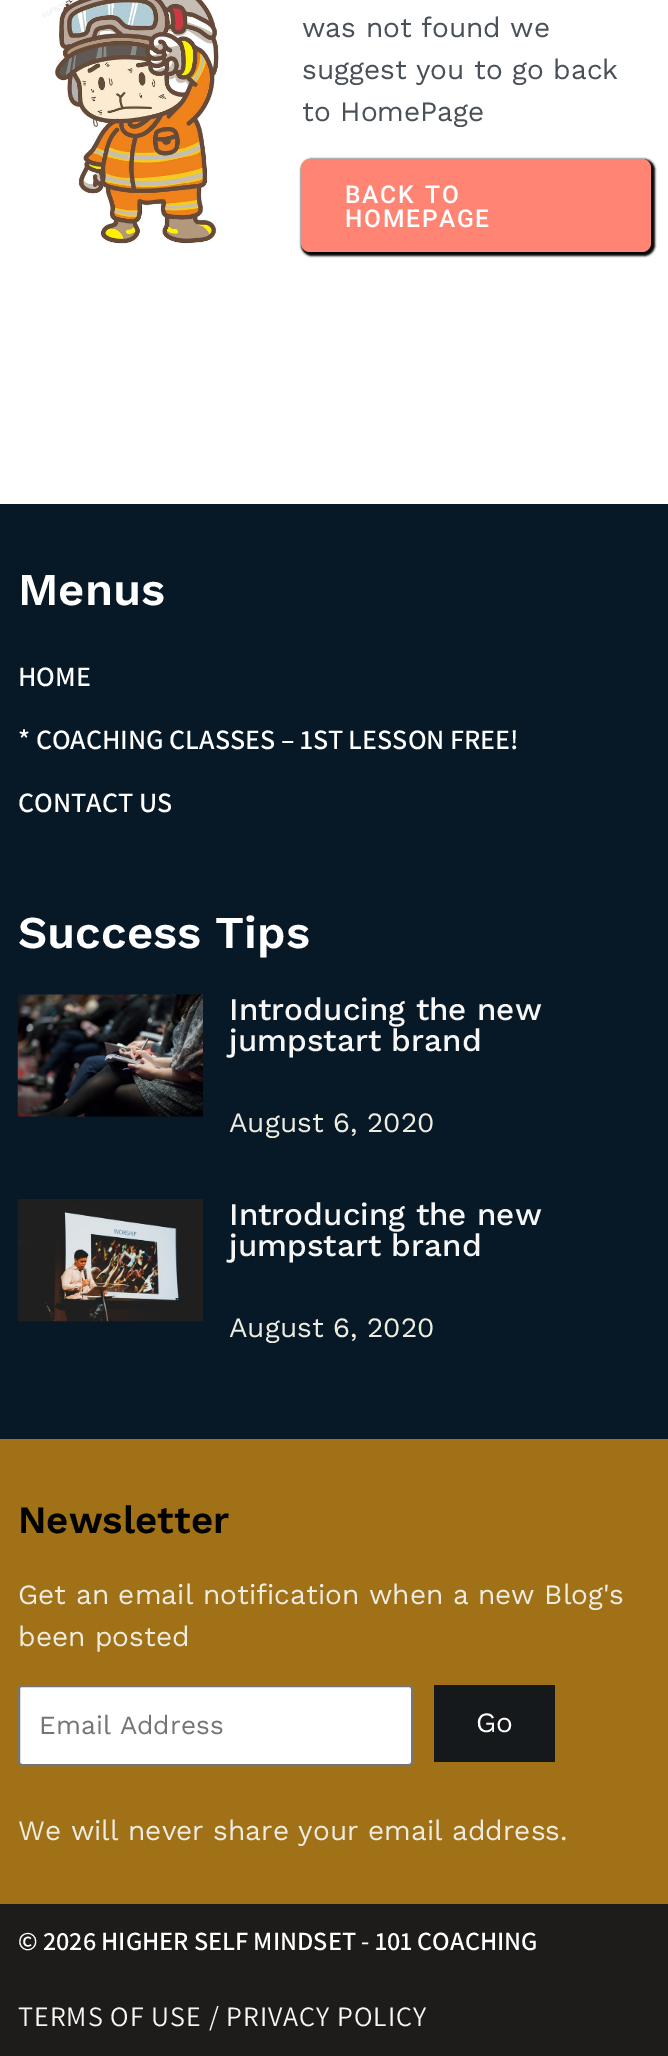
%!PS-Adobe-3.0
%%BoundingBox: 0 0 668 2056
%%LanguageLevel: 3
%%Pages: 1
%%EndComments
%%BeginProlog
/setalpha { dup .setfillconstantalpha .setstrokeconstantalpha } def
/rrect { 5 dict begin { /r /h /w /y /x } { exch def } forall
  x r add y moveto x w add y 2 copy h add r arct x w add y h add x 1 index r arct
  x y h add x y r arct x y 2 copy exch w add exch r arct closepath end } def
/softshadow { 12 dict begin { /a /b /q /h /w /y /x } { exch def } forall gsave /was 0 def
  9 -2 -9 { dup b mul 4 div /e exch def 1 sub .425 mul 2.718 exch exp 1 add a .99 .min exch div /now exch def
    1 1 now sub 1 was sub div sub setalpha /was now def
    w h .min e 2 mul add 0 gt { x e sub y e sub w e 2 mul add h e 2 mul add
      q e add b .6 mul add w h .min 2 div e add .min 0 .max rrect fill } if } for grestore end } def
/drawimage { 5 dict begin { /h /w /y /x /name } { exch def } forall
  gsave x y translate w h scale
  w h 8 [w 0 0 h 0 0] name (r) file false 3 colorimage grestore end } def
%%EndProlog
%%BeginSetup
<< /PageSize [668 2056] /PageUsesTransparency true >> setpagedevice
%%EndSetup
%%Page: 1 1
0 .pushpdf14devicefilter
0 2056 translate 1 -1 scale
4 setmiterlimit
1 setgray
0 0 668 2056 rectfill
(images/1.raw) 42 0 177 244 drawimage
0 setgray
301 159 354 97 11 1 1 softshadow
1 0.518 0.455 setrgbcolor
301 159 350 93 9 rrect fill
0.027 0.098 0.153 setrgbcolor
0 504 668 935 rectfill
(images/2.raw) 17 994 186 123 drawimage
(images/3.raw) 17 1199 186 123 drawimage
0.627 0.443 0.09 setrgbcolor
0 1439 668 465 rectfill
1 setgray
19 1686 393 79 3 rrect gsave fill grestore
0.463 setgray
2 setlinewidth
stroke
0.086 0.098 0.106 setrgbcolor
434 1685 121 77 rectfill
0.114 0.11 0.106 setrgbcolor
0 1904 668 152 rectfill
/WorkSans-Regular [28 0 0 -28 0 0] selectfont
0.286 0.314 0.341 setrgbcolor
302 37 moveto (was not found we) show
302 79 moveto (suggest you to go back) show
302 121 moveto (to HomePage) show
/Roboto-Medium [24.5 0 0 -24.5 0 0] selectfont
1 setgray
345 203 moveto 2 0 32 1.75 0 (BACK TO) awidthshow
345 227 moveto 1.75 0 (HOMEPAGE) ashow
/WorkSans-SemiBold [45.5 0 0 -45.5 0 0] selectfont
18 605 moveto (Menus) show
/Assistant-SemiBold [28 0 0 -28 0 0] selectfont
18 686 moveto (HOME) show
18 749 moveto (* COACHING CLASSES – 1ST LESSON FREE!) show
18 812 moveto (CONTACT US) show
/WorkSans-SemiBold [45.5 0 0 -45.5 0 0] selectfont
18 948 moveto (Success Tips) show
/WorkSans-Medium [31.5 0 0 -31.5 0 0] selectfont
0.965 setgray
229 1020 moveto (Introducing the new) show
229 1051 moveto (jumpstart brand) show
/WorkSans-Regular [28 0 0 -28 0 0] selectfont
0.933 0.925 0.882 setrgbcolor
229 1132 moveto (August 6, 2020) show
/WorkSans-Medium [31.5 0 0 -31.5 0 0] selectfont
0.965 setgray
229 1225 moveto (Introducing the new) show
229 1256 moveto (jumpstart brand) show
/WorkSans-Regular [28 0 0 -28 0 0] selectfont
0.933 0.925 0.882 setrgbcolor
229 1337 moveto (August 6, 2020) show
/WorkSans-SemiBold [38.5 0 0 -38.5 0 0] selectfont
0 setgray
18 1533 moveto (Newsletter) show
/WorkSans-Regular [28 0 0 -28 0 0] selectfont
0.933 0.925 0.882 setrgbcolor
18 1604 moveto (Get an email notification when a new Blog's) show
18 1646 moveto (been posted) show
/WorkSans-Regular [26.25 0 0 -26.25 0 0] selectfont
0.459 setgray
39 1734 moveto (Email Address) show
/WorkSans-Regular [28 0 0 -28 0 0] selectfont
1 setgray
476 1732 moveto (Go) show
0.933 0.925 0.882 setrgbcolor
18 1840 moveto (We will never share your email address.) show
/Assistant-SemiBold [26.25 0 0 -26.25 0 0] selectfont
1 setgray
18 1950 moveto (© 2026 HIGHER SELF MINDSET - 101 COACHING) show
/Assistant-Regular [28 0 0 -28 0 0] selectfont
0.965 setgray
18 2026 moveto 1.05 0 (TERMS OF USE / PRIVACY POLICY) ashow
.poppdf14devicefilter showpage
%%EOF
